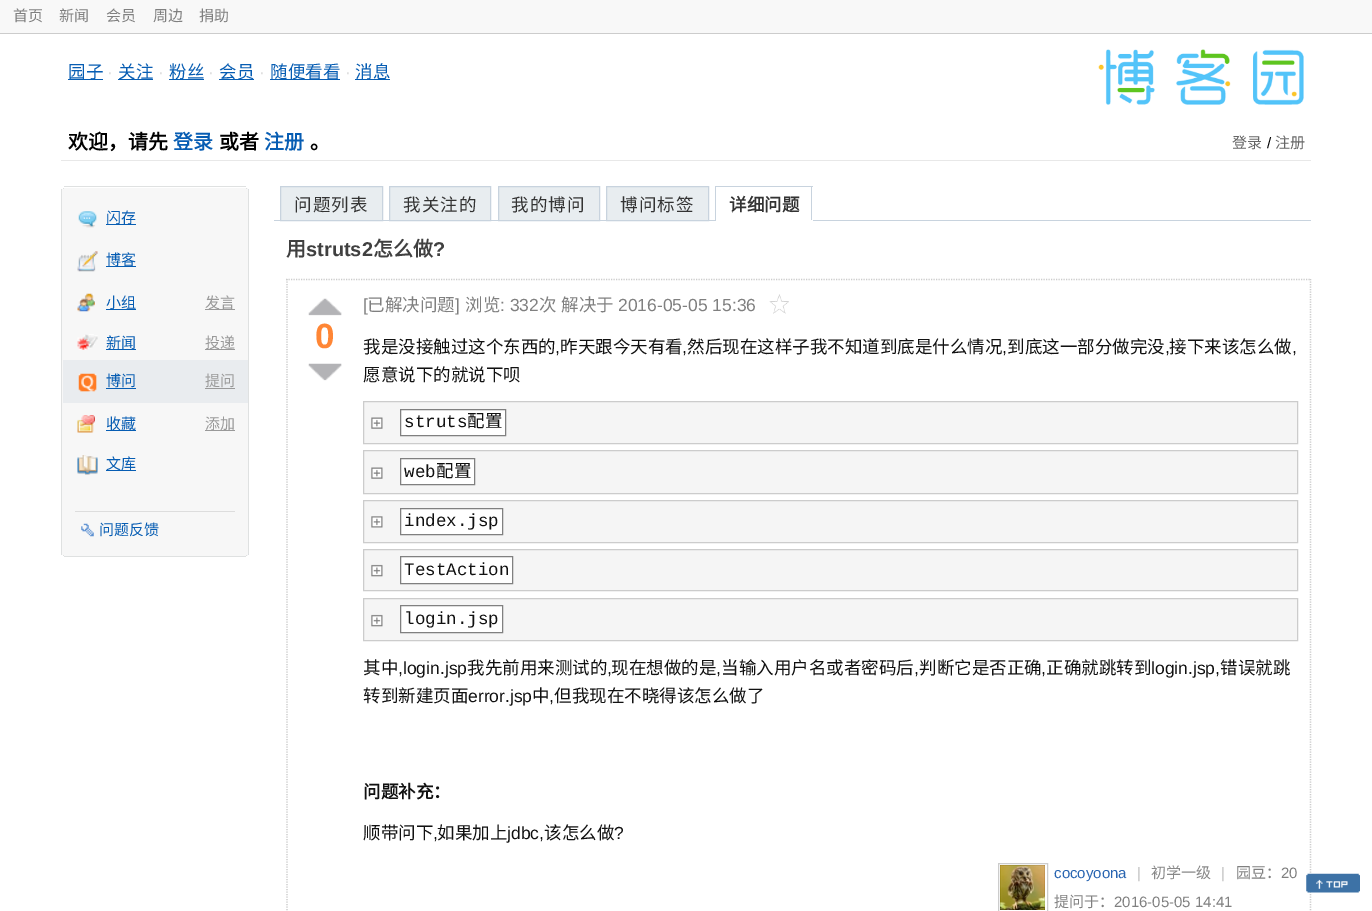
%!PS-Adobe-3.0
%%BoundingBox: 0 0 1372 911
%%LanguageLevel: 3
%%Pages: 1
%%EndComments
%%BeginProlog
/drawimage { 5 dict begin { /h /w /y /x /name } { exch def } forall
  gsave x y translate w h scale
  w h 8 [w 0 0 h 0 0] name (r) file false 3 colorimage grestore end } def
%%EndProlog
%%BeginSetup
<< /PageSize [1372 911] >> setpagedevice
%%EndSetup
%%Page: 1 1
0 911 translate 1 -1 scale
4 setmiterlimit
1 setgray
0 0 1372 911 rectfill
0.973 setgray
0 0 1372 33 rectfill
0.8 setgray
0 33 1372 1 rectfill
0.91 setgray
61 160 1250 1 rectfill
0.027 0.365 0.702 setrgbcolor
68 79 35 1 rectfill
118 79 35 1 rectfill
169 79 35 1 rectfill
219 79 35 1 rectfill
270 79 70 1 rectfill
355 79 35 1 rectfill
(images/1.raw) 1098 49 206 56 drawimage
0.875 0.882 0.882 setrgbcolor
64 186 182 1 rectfill
0.969 setgray
63 188 185 1 rectfill
0.875 0.882 0.882 setrgbcolor
246 188 1 1 rectfill
63 188 1 1 rectfill
0.969 setgray
61 189 188 1 rectfill
0.859 0.871 0.886 setrgbcolor
248 189 1 1 rectfill
0.875 0.882 0.882 setrgbcolor
61 189 1 365 rectfill
0.969 setgray
62 190 186 364 rectfill
0.875 0.882 0.882 setrgbcolor
248 190 1 364 rectfill
(images/2.raw) 78 211 19 17 drawimage
0.027 0.365 0.702 setrgbcolor
106 224 30 1 rectfill
(images/3.raw) 77 251 21 21 drawimage
106 266 30 1 rectfill
(images/4.raw) 77 293 18 19 drawimage
106 309 30 1 rectfill
0.6 setgray
205 309 30 1 rectfill
(images/5.raw) 77 334 21 16 drawimage
0.027 0.365 0.702 setrgbcolor
106 349 30 1 rectfill
0.6 setgray
205 349 30 1 rectfill
0.914 0.925 0.937 setrgbcolor
63 360 185 43 rectfill
(images/6.raw) 78 373 19 19 drawimage
0.027 0.365 0.702 setrgbcolor
106 388 30 1 rectfill
0.6 setgray
205 388 30 1 rectfill
(images/7.raw) 77 415 18 18 drawimage
0.027 0.365 0.702 setrgbcolor
106 430 30 1 rectfill
0.6 setgray
205 430 30 1 rectfill
(images/8.raw) 77 455 21 20 drawimage
0.027 0.365 0.702 setrgbcolor
106 470 30 1 rectfill
0.867 setgray
75 511 160 1 rectfill
(images/9.raw) 81 523 13 14 drawimage
0.969 setgray
61 554 188 1 rectfill
0.859 0.871 0.886 setrgbcolor
248 554 1 1 rectfill
0.875 0.882 0.882 setrgbcolor
61 554 1 1 rectfill
0.969 setgray
63 555 185 1 rectfill
0.875 0.882 0.882 setrgbcolor
246 555 1 1 rectfill
63 555 1 1 rectfill
64 556 182 1 rectfill
0.784 0.827 0.871 setrgbcolor
274 220 1037 1 rectfill
0.91 0.929 0.941 setrgbcolor
newpath 280.5 186.5 moveto 382.5 186.5 lineto 382.5 220.5 lineto 280.5 220.5 lineto closepath gsave fill grestore
0.784 0.827 0.871 setrgbcolor
stroke
0.91 0.929 0.941 setrgbcolor
newpath 389.5 186.5 moveto 490.5 186.5 lineto 490.5 220.5 lineto 389.5 220.5 lineto closepath gsave fill grestore
0.784 0.827 0.871 setrgbcolor
stroke
0.91 0.929 0.941 setrgbcolor
newpath 498.5 186.5 moveto 599.5 186.5 lineto 599.5 220.5 lineto 498.5 220.5 lineto closepath gsave fill grestore
0.784 0.827 0.871 setrgbcolor
stroke
0.91 0.929 0.941 setrgbcolor
newpath 606.5 186.5 moveto 708.5 186.5 lineto 708.5 220.5 lineto 606.5 220.5 lineto closepath gsave fill grestore
0.784 0.827 0.871 setrgbcolor
stroke
715 186 98 1 rectfill
811 186 1 35 rectfill
1 setgray
715 220 98 1 rectfill
0.784 0.827 0.871 setrgbcolor
715 186 1 35 rectfill
0.8 setgray
1.2 setlinewidth
[1.25 1.25] 0 setdash
newpath 286 279.5 moveto 1311 279.5 lineto stroke
newpath 1310.5 279 moveto 1310.5 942.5 lineto stroke
newpath 287 279 moveto 287 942.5 lineto stroke
(images/10.raw) 308 298 34 18 drawimage
(images/11.raw) 308 363 34 18 drawimage
(images/12.raw) 769 294 20 20 drawimage
0.961 setgray
newpath 363.5 401.5 moveto 1297.5 401.5 lineto 1297.5 443.5 lineto 363.5 443.5 lineto closepath gsave fill grestore
0.8 setgray
1 setlinewidth
[] 0 setdash
stroke
(images/13.raw) 371 417 12 12 drawimage
1 setgray
newpath 400.5 409.5 moveto 505.5 409.5 lineto 505.5 435.5 lineto 400.5 435.5 lineto closepath gsave fill grestore
0.502 setgray
stroke
0.961 setgray
newpath 363.5 450.5 moveto 1297.5 450.5 lineto 1297.5 493.5 lineto 363.5 493.5 lineto closepath gsave fill grestore
0.8 setgray
stroke
(images/13.raw) 371 467 12 12 drawimage
1 setgray
newpath 400.5 458.5 moveto 474.5 458.5 lineto 474.5 484.5 lineto 400.5 484.5 lineto closepath gsave fill grestore
0.502 setgray
stroke
0.961 setgray
newpath 363.5 500.5 moveto 1297.5 500.5 lineto 1297.5 542.5 lineto 363.5 542.5 lineto closepath gsave fill grestore
0.8 setgray
stroke
(images/14.raw) 371 516 12 12 drawimage
1 setgray
newpath 400.5 508.5 moveto 502.5 508.5 lineto 502.5 534.5 lineto 400.5 534.5 lineto closepath gsave fill grestore
0.502 setgray
stroke
0.961 setgray
newpath 363.5 549.5 moveto 1297.5 549.5 lineto 1297.5 590.5 lineto 363.5 590.5 lineto closepath gsave fill grestore
0.8 setgray
stroke
(images/15.raw) 371 564 12 13 drawimage
1 setgray
newpath 400.5 556.5 moveto 512.5 556.5 lineto 512.5 583.5 lineto 400.5 583.5 lineto closepath gsave fill grestore
0.502 setgray
stroke
0.961 setgray
newpath 363.5 598.5 moveto 1297.5 598.5 lineto 1297.5 640.5 lineto 363.5 640.5 lineto closepath gsave fill grestore
0.8 setgray
stroke
(images/15.raw) 371 614 12 13 drawimage
1 setgray
newpath 400.5 605.5 moveto 502.5 605.5 lineto 502.5 632.5 lineto 400.5 632.5 lineto closepath gsave fill grestore
0.502 setgray
stroke
0.8 setgray
998.5 863.5 49 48 rectstroke
(images/16.raw) 1000 865 45 45 drawimage
(images/17.raw) 1306 873 54 20 drawimage
/NotoSansCJKSC-Regular [15 0 0 -15 0 0] selectfont
0.502 setgray
13 21 moveto (首页) show
59 21 moveto (新闻) show
106 21 moveto (会员) show
153 21 moveto (周边) show
199 21 moveto (捐助) show
/NotoSansCJKSC-Regular [17.5 0 0 -17.5 0 0] selectfont
0.027 0.365 0.702 setrgbcolor
68 78 moveto (园子) show
/LiberationSans-Regular [17.5 0 0 -17.5 0 0] selectfont
0.875 setgray
107 78 moveto (·) show
/NotoSansCJKSC-Regular [17.5 0 0 -17.5 0 0] selectfont
0.027 0.365 0.702 setrgbcolor
118 78 moveto (关注) show
/LiberationSans-Regular [17.5 0 0 -17.5 0 0] selectfont
0.875 setgray
158 78 moveto (·) show
/NotoSansCJKSC-Regular [17.5 0 0 -17.5 0 0] selectfont
0.027 0.365 0.702 setrgbcolor
169 78 moveto (粉丝) show
/LiberationSans-Regular [17.5 0 0 -17.5 0 0] selectfont
0.875 setgray
208 78 moveto (·) show
/NotoSansCJKSC-Regular [17.5 0 0 -17.5 0 0] selectfont
0.027 0.365 0.702 setrgbcolor
219 78 moveto (会员) show
/LiberationSans-Regular [17.5 0 0 -17.5 0 0] selectfont
0.875 setgray
259 78 moveto (·) show
/NotoSansCJKSC-Regular [17.5 0 0 -17.5 0 0] selectfont
0.027 0.365 0.702 setrgbcolor
270 78 moveto (随便看看) show
/LiberationSans-Regular [17.5 0 0 -17.5 0 0] selectfont
0.875 setgray
345 78 moveto (·) show
/NotoSansCJKSC-Regular [17.5 0 0 -17.5 0 0] selectfont
0.027 0.365 0.702 setrgbcolor
355 78 moveto (消息) show
/NotoSansCJKSC-Bold [20 0 0 -20 0 0] selectfont
0 setgray
68 149 moveto (欢迎，请先) show
0.027 0.365 0.702 setrgbcolor
173 149 moveto (登录) show
0 setgray
219 149 moveto (或者) show
0.027 0.365 0.702 setrgbcolor
264 149 moveto (注册) show
0 setgray
310 149 moveto (。) show
/NotoSansCJKSC-Regular [15 0 0 -15 0 0] selectfont
0.4 setgray
1232 148 moveto (登录) show
/LiberationSans-Regular [15 0 0 -15 0 0] selectfont
0 setgray
1267 148 moveto (/) show
/NotoSansCJKSC-Regular [15 0 0 -15 0 0] selectfont
0.4 setgray
1275 148 moveto (注册) show
0.027 0.365 0.702 setrgbcolor
106 223 moveto (闪存) show
106 265 moveto (博客) show
106 308 moveto (小组) show
0.6 setgray
205 308 moveto (发言) show
0.027 0.365 0.702 setrgbcolor
106 348 moveto (新闻) show
0.6 setgray
205 348 moveto (投递) show
0.027 0.365 0.702 setrgbcolor
106 386 moveto (博问) show
0.6 setgray
205 386 moveto (提问) show
0.027 0.365 0.702 setrgbcolor
106 429 moveto (收藏) show
0.6 setgray
205 429 moveto (添加) show
0.027 0.365 0.702 setrgbcolor
106 469 moveto (文库) show
99 535 moveto (问题反馈) show
/NotoSansCJKSC-Regular [17.5 0 0 -17.5 0 0] selectfont
0.2 setgray
294 211 moveto 1 0 (问题列表) ashow
403 211 moveto 1 0 (我关注的) ashow
511 211 moveto 1 0 (我的博问) ashow
620 211 moveto 1 0 (博问标签) ashow
/NotoSansCJKSC-Bold [17.5 0 0 -17.5 0 0] selectfont
729 211 moveto (详细问题) show
/NotoSansCJKSC-Bold [20 0 0 -20 0 0] selectfont
0.251 setgray
286 256 moveto (用) show
/LiberationSans-Bold [20 0 0 -20 0 0] selectfont
306 256 moveto (struts2) show
/NotoSansCJKSC-Bold [20 0 0 -20 0 0] selectfont
373 256 moveto (怎么做) show
/LiberationSans-Bold [20 0 0 -20 0 0] selectfont
433 256 moveto (?) show
/LiberationSans-Bold [35 0 0 -35 0 0] selectfont
1 0.525 0.208 setrgbcolor
315 348 moveto (0) show
/LiberationSans-Regular [17.5 0 0 -17.5 0 0] selectfont
0.502 setgray
363 311 moveto ([) show
/NotoSansCJKSC-Regular [17.5 0 0 -17.5 0 0] selectfont
367 311 moveto (已解决问题) show
/LiberationSans-Regular [17.5 0 0 -17.5 0 0] selectfont
455 311 moveto (]) show
/NotoSansCJKSC-Regular [17.5 0 0 -17.5 0 0] selectfont
465 311 moveto (浏览) show
/LiberationSans-Regular [17.5 0 0 -17.5 0 0] selectfont
500 311 moveto (: 332) show
/NotoSansCJKSC-Regular [17.5 0 0 -17.5 0 0] selectfont
539 311 moveto (次) show
561 311 moveto (解决于) show
/LiberationSans-Regular [17.5 0 0 -17.5 0 0] selectfont
618 311 moveto (2016-05-05 15:36) show
/NotoSansCJKSC-Regular [17.5 0 0 -17.5 0 0] selectfont
0.067 setgray
363 353 moveto (我是没接触过这个东西的) show
/LiberationSans-Regular [17.5 0 0 -17.5 0 0] selectfont
555 353 moveto (,) show
/NotoSansCJKSC-Regular [17.5 0 0 -17.5 0 0] selectfont
560 353 moveto (昨天跟今天有看) show
/LiberationSans-Regular [17.5 0 0 -17.5 0 0] selectfont
682 353 moveto (,) show
/NotoSansCJKSC-Regular [17.5 0 0 -17.5 0 0] selectfont
687 353 moveto (然后现在这样子我不知道到底是什么情况) show
/LiberationSans-Regular [17.5 0 0 -17.5 0 0] selectfont
1002 353 moveto (,) show
/NotoSansCJKSC-Regular [17.5 0 0 -17.5 0 0] selectfont
1007 353 moveto (到底这一部分做完没) show
/LiberationSans-Regular [17.5 0 0 -17.5 0 0] selectfont
1165 353 moveto (,) show
/NotoSansCJKSC-Regular [17.5 0 0 -17.5 0 0] selectfont
1169 353 moveto (接下来该怎么做) show
/LiberationSans-Regular [17.5 0 0 -17.5 0 0] selectfont
1292 353 moveto (,) show
/NotoSansCJKSC-Regular [17.5 0 0 -17.5 0 0] selectfont
363 381 moveto (愿意说下的就说下呗) show
/LiberationMono-Regular [17.5 0 0 -17.5 0 0] selectfont
404 427 moveto (struts) show
/NotoSansCJKSC-Regular [17.5 0 0 -17.5 0 0] selectfont
467 427 moveto (配置) show
/LiberationMono-Regular [17.5 0 0 -17.5 0 0] selectfont
404 477 moveto (web) show
/NotoSansCJKSC-Regular [17.5 0 0 -17.5 0 0] selectfont
436 477 moveto (配置) show
/LiberationMono-Regular [17.5 0 0 -17.5 0 0] selectfont
404 526 moveto (index.jsp) show
404 575 moveto (TestAction) show
404 624 moveto (login.jsp) show
/NotoSansCJKSC-Regular [17.5 0 0 -17.5 0 0] selectfont
363 674 moveto (其中) show
/LiberationSans-Regular [17.5 0 0 -17.5 0 0] selectfont
398 674 moveto (,login.jsp) show
/NotoSansCJKSC-Regular [17.5 0 0 -17.5 0 0] selectfont
467 674 moveto (我先前用来测试的) show
/LiberationSans-Regular [17.5 0 0 -17.5 0 0] selectfont
607 674 moveto (,) show
/NotoSansCJKSC-Regular [17.5 0 0 -17.5 0 0] selectfont
611 674 moveto (现在想做的是) show
/LiberationSans-Regular [17.5 0 0 -17.5 0 0] selectfont
716 674 moveto (,) show
/NotoSansCJKSC-Regular [17.5 0 0 -17.5 0 0] selectfont
721 674 moveto (当输入用户名或者密码后) show
/LiberationSans-Regular [17.5 0 0 -17.5 0 0] selectfont
914 674 moveto (,) show
/NotoSansCJKSC-Regular [17.5 0 0 -17.5 0 0] selectfont
919 674 moveto (判断它是否正确) show
/LiberationSans-Regular [17.5 0 0 -17.5 0 0] selectfont
1041 674 moveto (,) show
/NotoSansCJKSC-Regular [17.5 0 0 -17.5 0 0] selectfont
1046 674 moveto (正确就跳转到) show
/LiberationSans-Regular [17.5 0 0 -17.5 0 0] selectfont
1151 674 moveto (login.jsp,) show
/NotoSansCJKSC-Regular [17.5 0 0 -17.5 0 0] selectfont
1220 674 moveto (错误就跳) show
363 702 moveto (转到新建页面) show
/LiberationSans-Regular [17.5 0 0 -17.5 0 0] selectfont
468 702 moveto (error.jsp) show
/NotoSansCJKSC-Regular [17.5 0 0 -17.5 0 0] selectfont
532 702 moveto (中) show
/LiberationSans-Regular [17.5 0 0 -17.5 0 0] selectfont
549 702 moveto (,) show
/NotoSansCJKSC-Regular [17.5 0 0 -17.5 0 0] selectfont
554 702 moveto (但我现在不晓得该怎么做了) show
/NotoSansCJKSC-Bold [17.5 0 0 -17.5 0 0] selectfont
363 798 moveto (问题补充：) show
/NotoSansCJKSC-Regular [17.5 0 0 -17.5 0 0] selectfont
363 839 moveto (顺带问下) show
437 839 moveto (如果加上) show
/LiberationSans-Regular [17.5 0 0 -17.5 0 0] selectfont
507 839 moveto (jdbc,) show
/NotoSansCJKSC-Regular [17.5 0 0 -17.5 0 0] selectfont
544 839 moveto (该怎么做) show
/LiberationSans-Regular [17.5 0 0 -17.5 0 0] selectfont
614 839 moveto (?) show
433 839 moveto (,) show
/LiberationSans-Regular [15 0 0 -15 0 0] selectfont
0.161 0.396 0.694 setrgbcolor
1054 878 moveto (cocoyoona) show
0.757 setgray
1137 878 moveto (|) show
/NotoSansCJKSC-Regular [15 0 0 -15 0 0] selectfont
0.533 setgray
1151 878 moveto (初学一级) show
/LiberationSans-Regular [15 0 0 -15 0 0] selectfont
0.757 setgray
1221 878 moveto (|) show
/NotoSansCJKSC-Regular [15 0 0 -15 0 0] selectfont
0.502 setgray
1236 878 moveto (园豆：) show
/LiberationSans-Regular [15 0 0 -15 0 0] selectfont
1281 878 moveto (20) show
/NotoSansCJKSC-Regular [15 0 0 -15 0 0] selectfont
1054 907 moveto (提问于：) show
/LiberationSans-Regular [15 0 0 -15 0 0] selectfont
1114 907 moveto (2016-05-05 14:41) show
showpage
%%EOF
